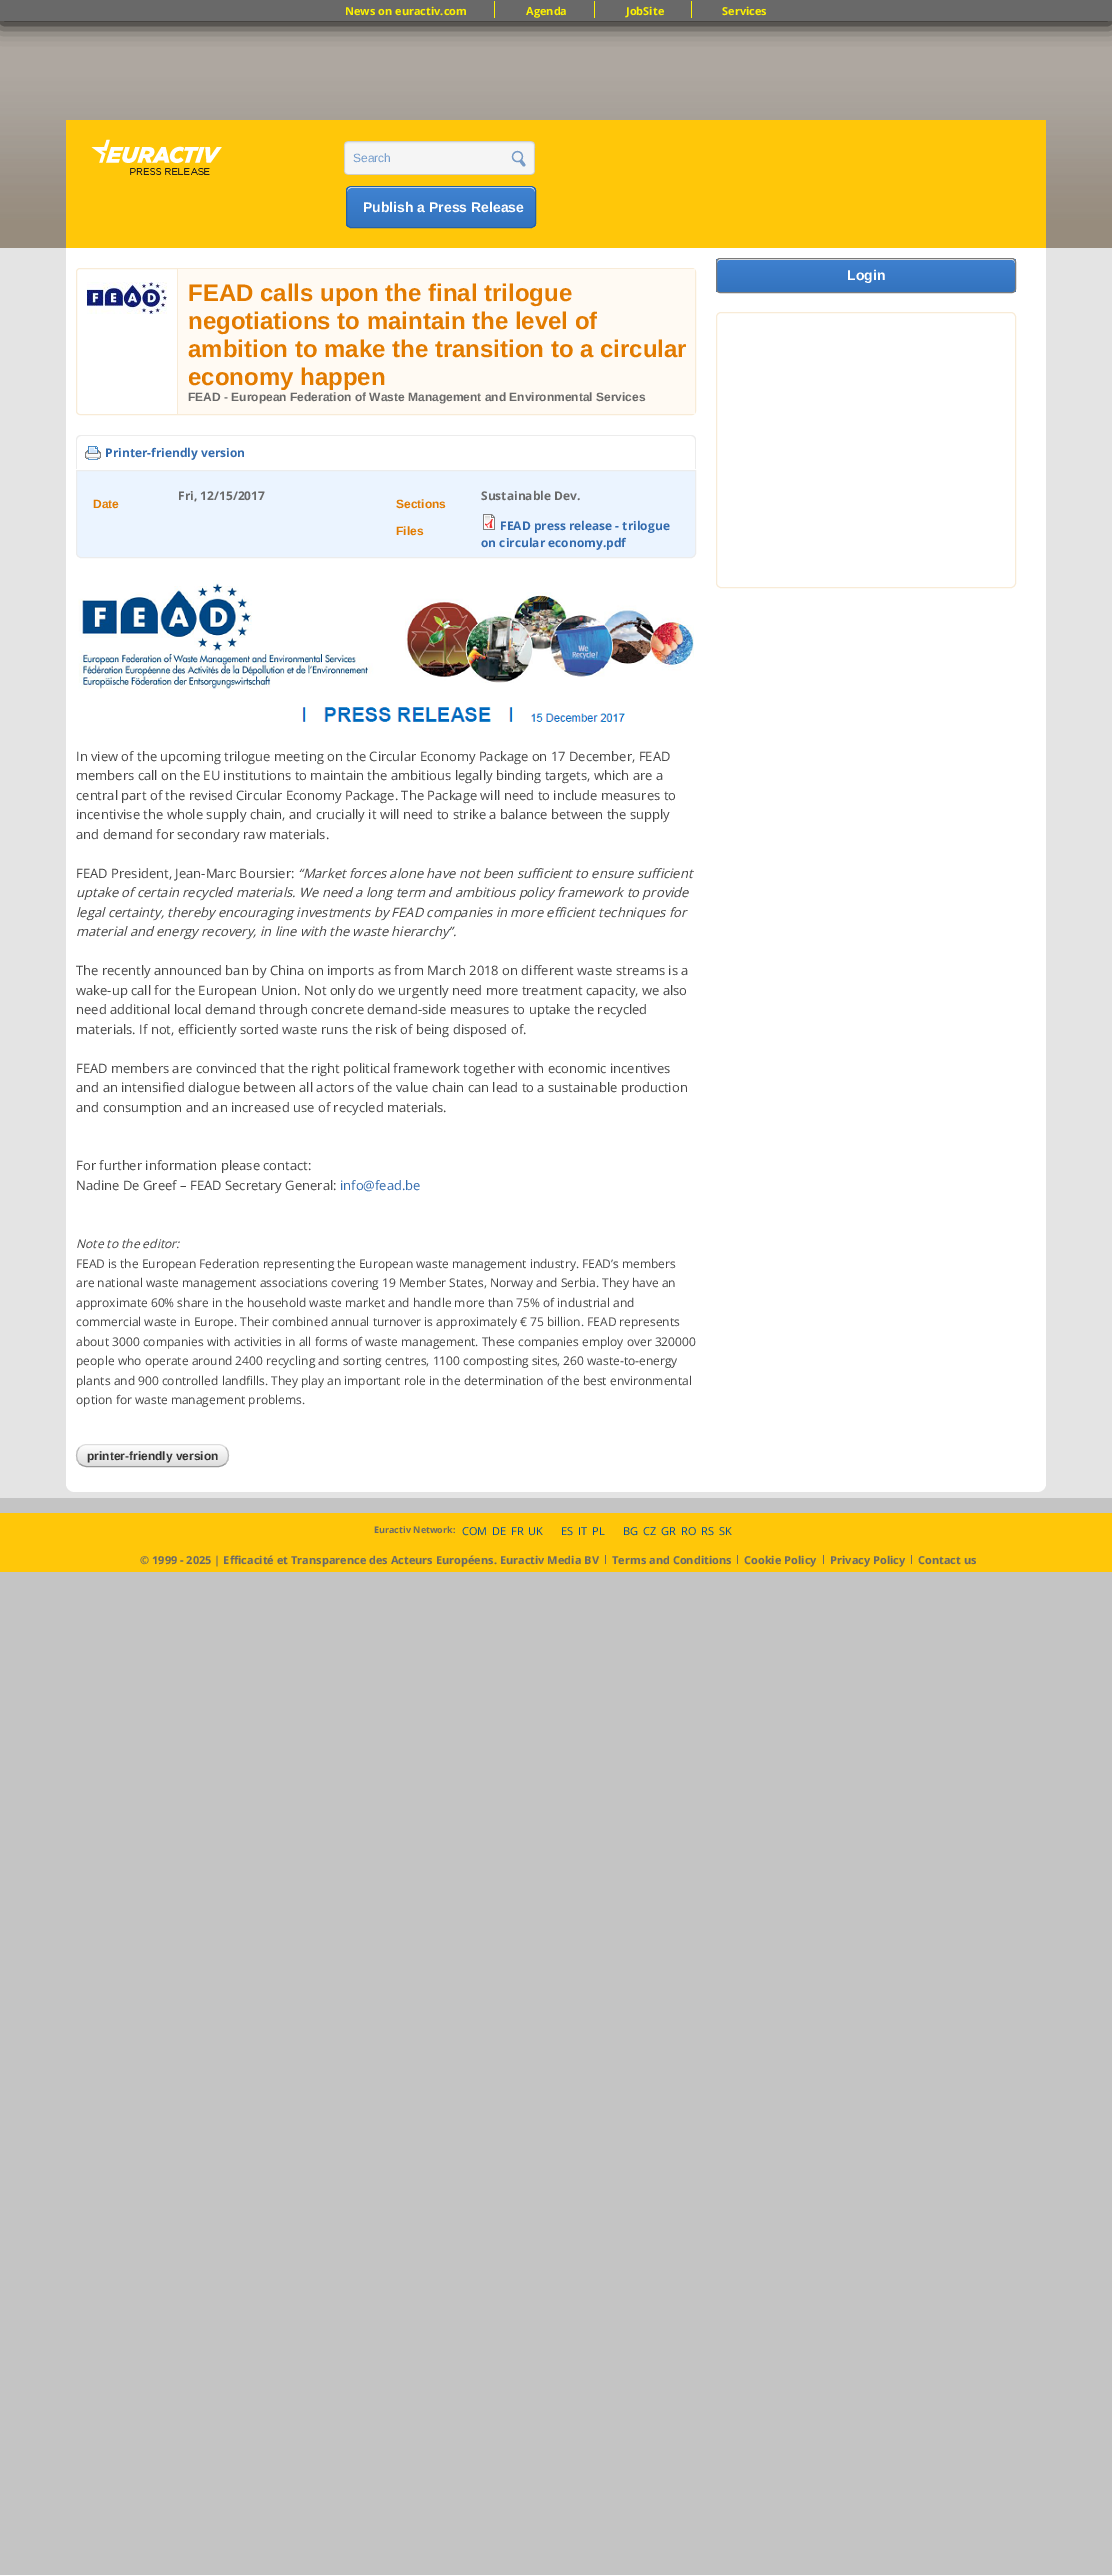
%!PS-Adobe-3.0
%%BoundingBox: 0 0 1112 2575
%%LanguageLevel: 3
%%Pages: 1
%%EndComments
%%BeginProlog
/setalpha { dup .setfillconstantalpha .setstrokeconstantalpha } def
/rrect { 5 dict begin { /r /h /w /y /x } { exch def } forall
  x r add y moveto x w add y 2 copy h add r arct x w add y h add x 1 index r arct
  x y h add x y r arct x y 2 copy exch w add exch r arct closepath end } def
/softshadow { 12 dict begin { /a /b /q /h /w /y /x } { exch def } forall gsave /was 0 def
  9 -2 -9 { dup b mul 4 div /e exch def 1 sub .425 mul 2.718 exch exp 1 add a .99 .min exch div /now exch def
    1 1 now sub 1 was sub div sub setalpha /was now def
    w h .min e 2 mul add 0 gt { x e sub y e sub w e 2 mul add h e 2 mul add
      q e add b .6 mul add w h .min 2 div e add .min 0 .max rrect fill } if } for grestore end } def
/drawimage { 5 dict begin { /h /w /y /x /name } { exch def } forall
  gsave x y translate w h scale
  w h 8 [w 0 0 h 0 0] name (r) file false 3 colorimage grestore end } def
%%EndProlog
%%BeginSetup
<< /PageSize [1112 2575] /PageUsesTransparency true >> setpagedevice
%%EndSetup
%%Page: 1 1
0 .pushpdf14devicefilter
0 2575 translate 1 -1 scale
4 setmiterlimit
0.769 setgray
0 0 1112 2575 rectfill
(images/1.raw) 0 21 1112 227 drawimage
0 setgray
0 3 1112 21 0 10 1 softshadow
0.412 setgray
0 0 1112 21 rectfill
0.996 0.949 0 setrgbcolor
494 1 1 17 rectfill
594 1 1 17 rectfill
691 1 1 17 rectfill
1 0.78 0.035 setrgbcolor
66 120 980 128 rectfill
(images/2.raw) 91 139 131 36 drawimage
(images/3.raw) 343 141 193 34 drawimage
(images/4.raw) 511 150 15 17 drawimage
gsave
346 186 190 42 5 rrect clip newpath
gsave newpath 346 187 moveto 536 187 lineto 536 227 lineto 346 227 lineto closepath clip newpath
<< /ShadingType 2 /ColorSpace /DeviceRGB /Coords [441 187 441 227] /Extend [true true] /Function << /FunctionType 2 /Domain [0 1] /C0 [0.251 0.514 0.824] /C1 [0.2 0.451 0.745] /N 1 >> >> shfill grestore
grestore
1 setgray
newpath 351 188 moveto 531 188 lineto 533 188 535 190 535 192 curveto 535 189 534 187 531 187 curveto 350 187 lineto 348 188 347 190 347 192 curveto 347 190 349 188 351 188 curveto closepath fill
0.145 0.38 0.659 setrgbcolor
346.5 186.5 189 41 4.5 rrect stroke
0.894 setgray
0 248 1112 1250 rectfill
1 setgray
66 248 980 1238 rectfill
(images/5.raw) 66 1486 980 7 drawimage
gsave
716 258 300 35 4 rrect clip newpath
gsave newpath 716 259 moveto 1016 259 lineto 1016 292 lineto 716 292 lineto closepath clip newpath
<< /ShadingType 2 /ColorSpace /DeviceRGB /Coords [866 259 866 292] /Extend [true true] /Function << /FunctionType 2 /Domain [0 1] /C0 [0.247 0.506 0.816] /C1 [0.2 0.451 0.745] /N 1 >> >> shfill grestore
grestore
newpath 720 260 moveto 1012 260 lineto 1014 260 1015 261 1015 263 curveto 1014 260 lineto 1013 259 lineto 720 259 lineto 718 259 717 261 717 263 curveto 717 261 718 260 720 260 curveto closepath fill
0.478 setgray
716.5 258.5 299 34 3.5 rrect stroke
0.973 0.922 0.843 setrgbcolor
716.5 312.5 299 275 4.5 rrect stroke
76.5 268.5 619 146 3.5 rrect stroke
(images/6.raw) 87 282 80 32 drawimage
1 0.98 0.953 setrgbcolor
178 269 517 145 rectfill
0.973 0.922 0.843 setrgbcolor
177 269 1 145 rectfill
0.925 setgray
newpath 81 435 moveto 691 435 lineto 694 435 696 437 696 440 curveto 696 469 lineto 76 469 lineto 76 440 lineto 76 437 78 435 81 435 curveto closepath 81 436 moveto 691 436 lineto 693 436 695 438 695 440 curveto 695 469 lineto 77 469 lineto 77 440 lineto 77 438 79 436 81 436 curveto closepath eofill
(images/7.raw) 85 446 16 14 drawimage
0.922 0.957 1 setrgbcolor
newpath 76.5 470.5 moveto 695.5 470.5 lineto 695.5 553 lineto 695.5 555.5 693.5 557.5 691 557.5 curveto 81 557.5 lineto 78.5 557.5 76.5 555.5 76.5 553 curveto closepath gsave fill grestore
0.925 setgray
stroke
(images/8.raw) 483 514 12 16 drawimage
(images/9.raw) 78 580 616 142 drawimage
gsave
76 1444 153 23 11 rrect clip newpath
gsave newpath 76 1445 moveto 229 1445 lineto 229 1466 lineto 76 1466 lineto closepath clip newpath
<< /ShadingType 2 /ColorSpace /DeviceRGB /Coords [77 1445 77 1466] /Extend [true true] /Function << /FunctionType 2 /Domain [0 1] /C0 [1 1 1] /C1 [0.867 0.867 0.867] /N 1 >> >> shfill grestore
grestore
0.867 setgray
newpath 79.5 1447.5 moveto 81.5 1445.5 84 1444.5 87 1444.5 curveto 218 1444.5 lineto 221 1444.5 223.5 1445.5 225.5 1447.5 curveto stroke
0.733 setgray
newpath 225.5 1447.5 moveto 229.5 1451.5 229.5 1459.5 225.5 1463.5 curveto stroke
0.6 setgray
newpath 225.5 1463.5 moveto 223.5 1465.5 221 1466.5 218 1466.5 curveto 87 1466.5 lineto 84 1466.5 81.5 1465.5 79.5 1463.5 curveto stroke
0.733 setgray
newpath 79.5 1463.5 moveto 75.5 1459.5 75.5 1451.5 79.5 1447.5 curveto stroke
1 0.78 0.035 setrgbcolor
0 1513 1112 59 rectfill
0.412 setgray
605 1555 1 9 rectfill
737 1555 1 9 rectfill
823 1555 1 9 rectfill
911 1555 1 9 rectfill
/OpenSans-Bold [11 0 0 -11 0 0] selectfont
0.996 0.949 0 setrgbcolor
345 15 moveto (News on euractiv.com) show
526 15 moveto (Agenda) show
626 15 moveto (JobSite) show
722 15 moveto (Services) show
/LiberationSans-Regular [12 0 0 -12 0 0] selectfont
0.455 0.612 0.796 setrgbcolor
353 162 moveto (Search) show
/LiberationSans-Bold [14 0 0 -14 0 0] selectfont
1 setgray
363 212 moveto (Publish a Press Release) show
847 280 moveto (Login) show
/LiberationSans-Bold [24 0 0 -24 0 0] selectfont
0.886 0.482 0 setrgbcolor
188 301 moveto (FEAD calls upon the final trilogue) show
188 329 moveto (negotiations to maintain the level of) show
188 357 moveto (ambition to make the transition to a circular) show
188 385 moveto (economy happen) show
/LiberationSans-Bold [12 0 0 -12 0 0] selectfont
0.412 setgray
188 401 moveto (FEAD - European Federation of Waste Management and Environmental Services) show
/OpenSans-Bold [12 0 0 -12 0 0] selectfont
0.196 0.416 0.678 setrgbcolor
105 457 moveto (Printer-friendly version) show
0.412 setgray
178 500 moveto (Fri, 12/15/2017) show
/LiberationSans-Bold [12 0 0 -12 0 0] selectfont
0.886 0.482 0 setrgbcolor
93 508 moveto (Date) show
/OpenSans-Bold [12 0 0 -12 0 0] selectfont
0.412 setgray
481 500 moveto (Sustainable Dev.) show
/LiberationSans-Bold [12 0 0 -12 0 0] selectfont
0.886 0.482 0 setrgbcolor
396 508 moveto (Sections) show
396 535 moveto (Files) show
/OpenSans-Bold [12 0 0 -12 0 0] selectfont
0.196 0.416 0.678 setrgbcolor
500 530 moveto (FEAD press release - trilogue) show
481 547 moveto (on circular economy.pdf) show
/OpenSans-Regular [13 0 0 -13 0 0] selectfont
0.271 setgray
76 761 moveto (In view of the upcoming trilogue meeting on the Circular Economy Package on 17 December, FEAD) show
76 780 moveto (members call on the EU institutions to maintain the ambitious legally binding targets, which are a) show
76 800 moveto (central part of the revised Circular Economy Package. The Package will need to include measures to) show
76 819 moveto (incentivise the whole supply chain, and crucially it will need to strike a balance between the supply) show
76 839 moveto (and demand for secondary raw materials.) show
76 878 moveto (FEAD President, Jean-Marc Boursier:) show
/OpenSans-Italic [13 0 0 -13 0 0] selectfont
298 878 moveto (“Market forces alone have not been sufficient to ensure sufficient) show
76 897 moveto (uptake of certain recycled materials. We need a long term and ambitious policy framework to provide) show
76 917 moveto (legal certainty, thereby encouraging investments by FEAD companies in more efficient techniques for) show
76 936 moveto (material and energy recovery, in line with the waste hierarchy”.) show
/OpenSans-Regular [13 0 0 -13 0 0] selectfont
76 975 moveto (The recently announced ban by China on imports as from March 2018 on different waste streams is a) show
76 995 moveto (wake-up call for the European Union. Not only do we urgently need more treatment capacity, we also) show
76 1014 moveto (need additional local demand through concrete demand-side measures to uptake the recycled) show
76 1034 moveto (materials. If not, efficiently sorted waste runs the risk of being disposed of.) show
76 1073 moveto (FEAD members are convinced that the right political framework together with economic incentives) show
76 1092 moveto (and an intensified dialogue between all actors of the value chain can lead to a sustainable production) show
76 1112 moveto (and consumption and an increased use of recycled materials.) show
76 1170 moveto (For further information please contact:) show
76 1190 moveto (Nadine De Greef – FEAD Secretary General:) show
0.196 0.416 0.678 setrgbcolor
340 1190 moveto (info@fead.be) show
/OpenSans-Italic [12 0 0 -12 0 0] selectfont
0.271 setgray
76 1248 moveto (Note to the editor:) show
/OpenSans-Regular [12 0 0 -12 0 0] selectfont
76 1268 moveto (FEAD is the European Federation representing the European waste management industry. FEAD’s members) show
76 1287 moveto (are national waste management associations covering 19 Member States, Norway and Serbia. They have an) show
76 1307 moveto (approximate 60% share in the household waste market and handle more than 75% of industrial and) show
76 1326 moveto (commercial waste in Europe. Their combined annual turnover is approximately € 75 billion. FEAD represents) show
76 1346 moveto (about 3000 companies with activities in all forms of waste management. These companies employ over 320000) show
76 1365 moveto (people who operate around 2400 recycling and sorting centres, 1100 composting sites, 260 waste-to-energy) show
76 1385 moveto (plants and 900 controlled landfills. They play an important role in the determination of the best environmental) show
76 1404 moveto (option for waste management problems.) show
/LiberationSans-Bold [12 0 0 -12 0 0] selectfont
0.2 setgray
87 1460 moveto (printer-friendly version) show
/OpenSans-Bold [9 0 0 -9 0 0] selectfont
0.412 setgray
374 1533 moveto (Euractiv Network:) show
/OpenSans-Regular [11 0 0 -11 0 0] selectfont
0.004 0.294 0.639 setrgbcolor
462 1535 moveto (COM) show
492 1535 moveto (DE) show
511 1535 moveto (FR) show
528 1535 moveto (UK) show
561 1535 moveto (ES) show
578 1535 moveto (IT) show
592 1535 moveto (PL) show
623 1535 moveto (BG) show
643 1535 moveto (CZ) show
661 1535 moveto (GR) show
681 1535 moveto (RO) show
701 1535 moveto (RS) show
719 1535 moveto (SK) show
/OpenSans-Bold [11 0 0 -11 0 0] selectfont
0.412 setgray
140 1564 moveto (© 1999 - 2025 | Efficacité et Transparence des Acteurs Européens. Euractiv Media BV) show
612 1564 moveto (Terms and Conditions) show
744 1564 moveto (Cookie Policy) show
830 1564 moveto (Privacy Policy) show
918 1564 moveto (Contact us) show
.poppdf14devicefilter showpage
%%EOF
